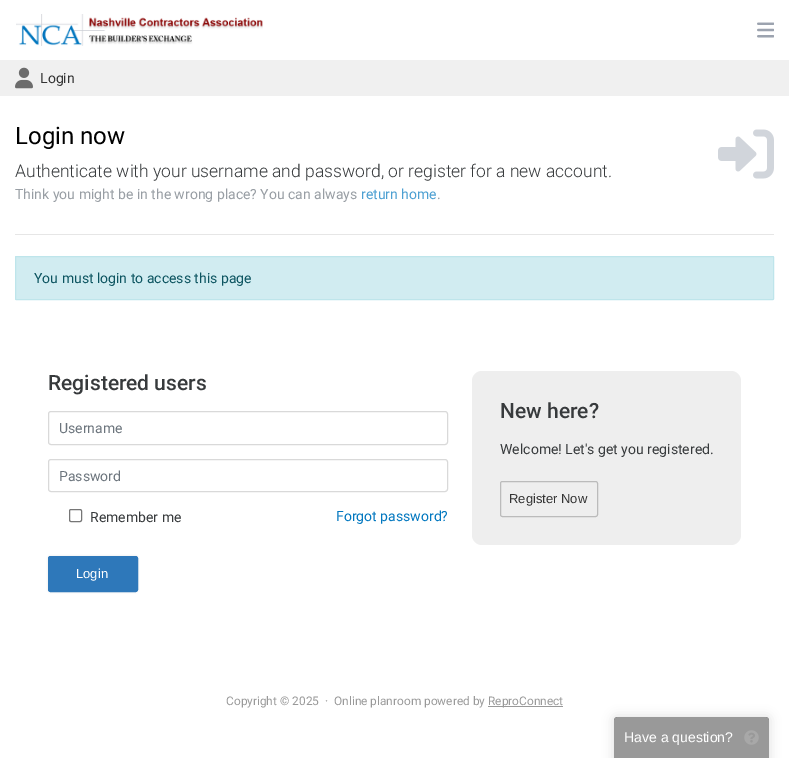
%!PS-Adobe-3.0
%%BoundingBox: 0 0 789 758
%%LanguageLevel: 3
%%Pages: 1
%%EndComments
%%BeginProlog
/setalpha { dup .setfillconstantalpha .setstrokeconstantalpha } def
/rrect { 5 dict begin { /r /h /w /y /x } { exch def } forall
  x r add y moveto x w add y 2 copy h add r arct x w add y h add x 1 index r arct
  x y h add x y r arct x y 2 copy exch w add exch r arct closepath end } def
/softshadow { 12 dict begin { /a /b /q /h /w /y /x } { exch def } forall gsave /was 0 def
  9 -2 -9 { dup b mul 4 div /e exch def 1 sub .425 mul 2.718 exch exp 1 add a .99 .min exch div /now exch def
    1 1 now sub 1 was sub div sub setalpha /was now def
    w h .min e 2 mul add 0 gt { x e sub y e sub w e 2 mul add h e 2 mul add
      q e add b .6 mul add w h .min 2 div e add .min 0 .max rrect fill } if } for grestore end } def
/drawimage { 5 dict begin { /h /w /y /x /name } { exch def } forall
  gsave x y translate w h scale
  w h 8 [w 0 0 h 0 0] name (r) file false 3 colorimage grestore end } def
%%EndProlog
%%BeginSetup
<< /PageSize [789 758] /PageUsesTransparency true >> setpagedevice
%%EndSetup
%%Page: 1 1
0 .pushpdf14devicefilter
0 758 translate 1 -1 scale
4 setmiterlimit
1 setgray
0 0 789 758 rectfill
(images/1.raw) 16 14 247 32 drawimage
(images/2.raw) 757 22 17 16 drawimage
0.941 setgray
0 60 789 36 rectfill
(images/3.raw) 15 67 18 22 drawimage
0.902 setgray
15 234 759 1 rectfill
(images/4.raw) 718 129 56 50 drawimage
0.82 0.925 0.945 setrgbcolor
15.5 256.5 758 43 0.5 rrect gsave fill grestore
0.745 0.898 0.922 setrgbcolor
stroke
0.851 setgray
48.5 411.5 399 33 2.5 rrect stroke
48.5 459.5 399 32 2.5 rrect stroke
0.463 setgray
69.5 509.5 12 12 1.5 rrect stroke
0 setgray
48 556 90 36 2.5 1 0.1 softshadow
0.18 0.471 0.729 setrgbcolor
48.5 556.5 89 35 2 rrect gsave fill grestore
stroke
0.933 setgray
472 371 269 174 10 rrect fill
0.733 setgray
500.5 481.5 97 35 2 rrect stroke
0.6 setgray
488 706 75 1 rectfill
gsave
newpath 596 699 moveto 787 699 lineto 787 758 lineto 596 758 lineto closepath 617 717 moveto 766 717 lineto 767.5 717 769 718.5 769 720 curveto 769 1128 lineto 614 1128 lineto 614 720 lineto 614 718.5 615.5 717 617 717 curveto closepath eoclip newpath
0 setgray
612 715 159 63 5 5 0.1 softshadow
grestore
0.5 setalpha
0.2 setgray
newpath 617 717 moveto 766 717 lineto 767.5 717 769 718.5 769 720 curveto 769 758 lineto 614 758 lineto 614 720 lineto 614 718.5 615.5 717 617 717 curveto closepath fill
1 setalpha
(images/5.raw) 744 730 15 15 drawimage
/Roboto-Regular [14 0 0 -14 0 0] selectfont
40 83 moveto (Login) show
/Roboto-Regular [24 0 0 -24 0 0] selectfont
0 setgray
15 144 moveto (Login now) show
/Roboto-Light [17.5 0 0 -17.5 0 0] selectfont
0.216 0.227 0.235 setrgbcolor
15 177 moveto (Authenticate with your username and password, or register for a new account.) show
/Roboto-Regular [14 0 0 -14 0 0] selectfont
0.596 0.62 0.643 setrgbcolor
15 199 moveto (Think you might be in the wrong place? You can always) show
0.302 0.627 0.824 setrgbcolor
361 199 moveto (return home) show
0.596 0.62 0.643 setrgbcolor
437 199 moveto (.) show
0.047 0.329 0.376 setrgbcolor
34 283 moveto (You must login to access this page) show
/Roboto-Medium [21 0 0 -21 0 0] selectfont
0.216 0.227 0.235 setrgbcolor
48 390 moveto (Registered users) show
/Roboto-Regular [14 0 0 -14 0 0] selectfont
0.424 0.459 0.49 setrgbcolor
59 433 moveto (Username) show
59 481 moveto (Password) show
0.216 0.227 0.235 setrgbcolor
90 522 moveto (Remember me) show
0.004 0.467 0.749 setrgbcolor
336 521 moveto (Forgot password?) show
/LiberationSans-Regular [13 0 0 -13 0 0] selectfont
1 setgray
76 578 moveto (Login) show
/Roboto-Medium [21 0 0 -21 0 0] selectfont
0.216 0.227 0.235 setrgbcolor
500 418 moveto (New here?) show
/Roboto-Regular [14 0 0 -14 0 0] selectfont
500 454 moveto (Welcome! Let's get you registered.) show
/LiberationSans-Regular [13 0 0 -13 0 0] selectfont
0.2 setgray
509 503 moveto (Register Now) show
/Roboto-Regular [11.9 0 0 -11.9 0 0] selectfont
0.6 setgray
226 705 moveto (Copyright © 2025) show
325 705 moveto (·) show
334 705 moveto (Online planroom powered by) show
488 705 moveto (ReproConnect) show
/LiberationSans-Regular [14 0 0 -14 0 0] selectfont
1 setgray
624 742 moveto (Have a question?) show
.poppdf14devicefilter showpage
%%EOF
